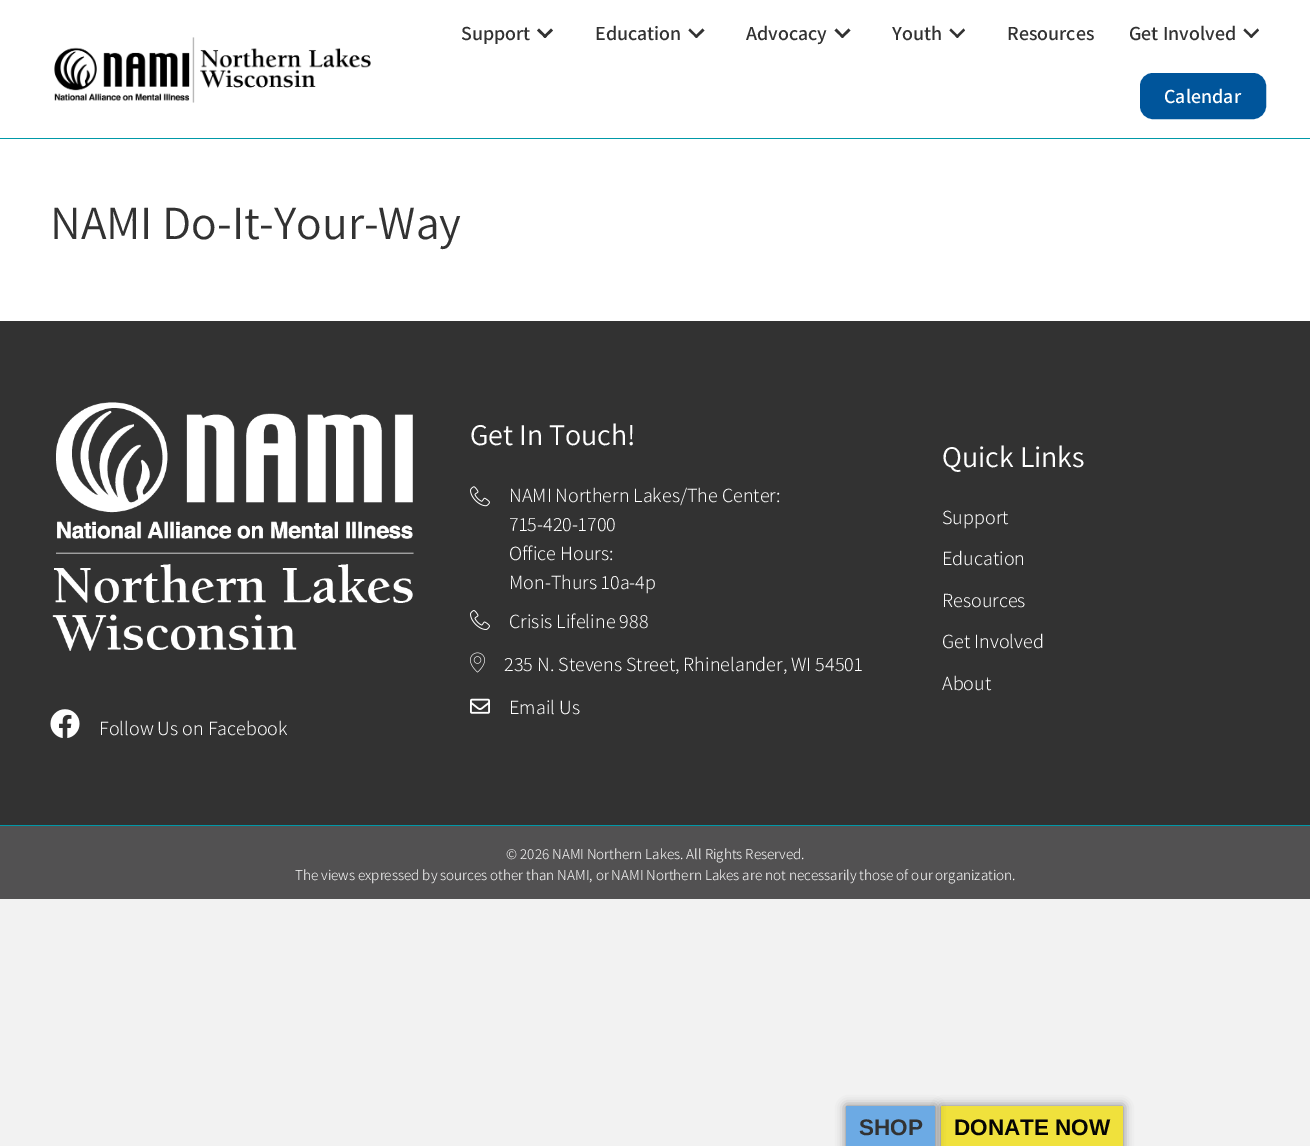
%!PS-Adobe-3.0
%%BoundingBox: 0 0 1310 1146
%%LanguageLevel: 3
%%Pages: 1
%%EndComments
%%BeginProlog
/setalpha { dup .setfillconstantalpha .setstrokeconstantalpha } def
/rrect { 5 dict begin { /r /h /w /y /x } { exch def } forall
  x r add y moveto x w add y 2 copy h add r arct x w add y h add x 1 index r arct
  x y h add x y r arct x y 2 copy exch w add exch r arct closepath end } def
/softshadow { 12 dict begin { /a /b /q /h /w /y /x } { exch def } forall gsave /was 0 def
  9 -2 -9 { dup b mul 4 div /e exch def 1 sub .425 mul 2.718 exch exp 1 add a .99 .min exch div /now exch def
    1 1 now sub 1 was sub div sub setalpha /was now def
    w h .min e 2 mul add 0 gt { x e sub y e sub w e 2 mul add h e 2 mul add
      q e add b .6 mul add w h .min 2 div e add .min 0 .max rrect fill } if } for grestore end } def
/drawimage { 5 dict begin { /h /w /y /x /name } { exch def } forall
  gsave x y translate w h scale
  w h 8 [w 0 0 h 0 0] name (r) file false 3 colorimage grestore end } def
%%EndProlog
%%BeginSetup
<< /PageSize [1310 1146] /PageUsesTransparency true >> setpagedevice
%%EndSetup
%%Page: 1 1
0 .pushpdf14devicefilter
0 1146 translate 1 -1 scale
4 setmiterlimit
0.949 setgray
0 0 1310 1146 rectfill
1 setgray
0 0 1310 138 rectfill
0 0.6 0.659 setrgbcolor
0 138 1310 1 rectfill
(images/1.raw) 54 37 317 66 drawimage
0.196 setgray
newpath 551 28.5 moveto 553 30.5 lineto 545 38 lineto 543 36.5 lineto closepath fill
newpath 539 28.5 moveto 547 36.5 lineto 545 38 lineto 537 30.5 lineto closepath fill
newpath 702.5 28.5 moveto 704.5 30.5 lineto 696.5 38 lineto 694.5 36.5 lineto closepath fill
newpath 690 28.5 moveto 698 36.5 lineto 696.5 38 lineto 688.5 30.5 lineto closepath fill
newpath 848.5 28.5 moveto 850.5 30.5 lineto 842.5 38 lineto 840.5 36.5 lineto closepath fill
newpath 836.5 28.5 moveto 844 36.5 lineto 842.5 38 lineto 834.5 30.5 lineto closepath fill
newpath 963.5 28.5 moveto 965 30.5 lineto 957.5 38 lineto 955.5 36.5 lineto closepath fill
newpath 951 28.5 moveto 959 36.5 lineto 957.5 38 lineto 949.5 30.5 lineto closepath fill
newpath 1257.5 28.5 moveto 1259 30.5 lineto 1251.5 38 lineto 1249.5 36.5 lineto closepath fill
newpath 1245 28.5 moveto 1253 36.5 lineto 1251.5 38 lineto 1243.5 30.5 lineto closepath fill
0 0.333 0.608 setrgbcolor
1141.5 74.5 123 43 11.5 rrect gsave fill grestore
3 setlinewidth
stroke
1 setgray
0 139 1310 182 rectfill
0.196 setgray
0 321 1310 504 rectfill
(images/2.raw) 470 486 20 21 drawimage
(images/3.raw) 470 610 20 20 drawimage
(images/4.raw) 470 652 15 21 drawimage
(images/5.raw) 470 698 20 16 drawimage
(images/6.raw) 52 402 362 249 drawimage
(images/7.raw) 50 709 30 29 drawimage
0.322 0.318 0.322 setrgbcolor
0 826 1310 73 rectfill
0 0.6 0.659 setrgbcolor
0 825 1310 1 rectfill
0 setgray
941 1106 182 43 0 5 0.5 softshadow
0.941 0.882 0.235 setrgbcolor
941 1106 182 40 rectfill
0 setgray
846 1106 89 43 0 5 0.5 softshadow
0.424 0.667 0.894 setrgbcolor
846 1106 89 40 rectfill
/Assistant-SemiBold [20 0 0 -20 0 0] selectfont
0.196 setgray
461 40 moveto (Support) show
595 40 moveto (Education) show
746 40 moveto (Advocacy) show
892 40 moveto (Youth) show
1007 40 moveto (Resources) show
1129 40 moveto (Get Involved) show
1 setgray
1164 103 moveto (Calendar) show
/Assistant-Regular [47.5 0 0 -47.5 0 0] selectfont
0.196 setgray
50 239 moveto (NAMI Do-It-Your-Way) show
/Assistant-Regular [30 0 0 -30 0 0] selectfont
1 setgray
470 445 moveto (Get In Touch!) show
/Assistant-Light [20 0 0 -20 0 0] selectfont
509 502 moveto (NAMI Northern Lakes/The Center:) show
509 531 moveto (715-420-1700) show
509 560 moveto (Office Hours:) show
509 589 moveto (Mon-Thurs 10a-4p) show
509 628 moveto (Crisis Lifeline 988) show
504 671 moveto (235 N. Stevens Street, Rhinelander, WI 54501) show
509 714 moveto (Email Us) show
/Assistant-Regular [30 0 0 -30 0 0] selectfont
942 467 moveto (Quick Links) show
/Assistant-Light [20 0 0 -20 0 0] selectfont
942 524 moveto (Support) show
942 565 moveto (Education) show
942 607 moveto (Resources) show
942 648 moveto (Get Involved) show
942 690 moveto (About) show
99 735 moveto (Follow Us on Facebook) show
/Assistant-Light [15 0 0 -15 0 0] selectfont
506 859 moveto (© 2026 NAMI Northern Lakes. All Rights Reserved.) show
295 880 moveto (The views expressed by sources other than NAMI, or NAMI Northern Lakes are not necessarily those of our organization.) show
/LiberationSans-Bold [22.5 0 0 -22.5 0 0] selectfont
0.196 setgray
859 1135 moveto (SHOP) show
0.02 setgray
954 1135 moveto (DONATE NOW) show
.poppdf14devicefilter showpage
%%EOF
